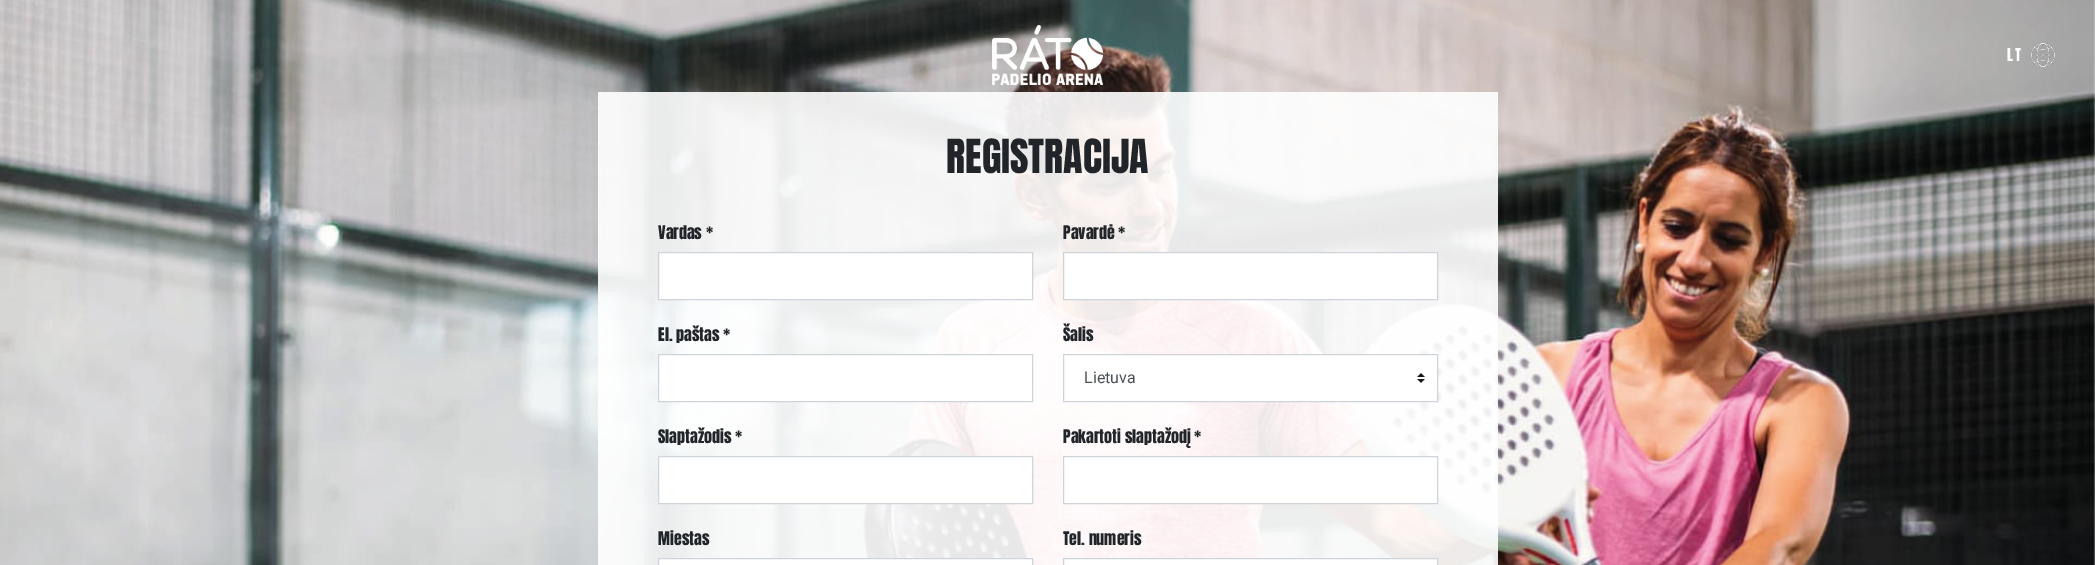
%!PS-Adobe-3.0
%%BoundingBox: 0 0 2095 565
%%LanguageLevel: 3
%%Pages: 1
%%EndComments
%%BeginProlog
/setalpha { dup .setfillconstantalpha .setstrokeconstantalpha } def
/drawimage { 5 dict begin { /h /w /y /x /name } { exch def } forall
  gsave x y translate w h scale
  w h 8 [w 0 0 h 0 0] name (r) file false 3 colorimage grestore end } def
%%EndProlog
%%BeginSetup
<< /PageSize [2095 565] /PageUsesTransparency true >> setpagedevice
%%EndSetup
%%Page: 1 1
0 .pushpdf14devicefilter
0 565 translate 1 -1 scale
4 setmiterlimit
1 setgray
0 0 2095 565 rectfill
(images/3.raw) 0 0 2095 565 drawimage
(images/1.raw) 992 25 111 60 drawimage
(images/2.raw) 2031 43 24 24 drawimage
0.9 setalpha
598 92 900 473 rectfill
1 setalpha
newpath 658.5 252.5 moveto 1032.5 252.5 lineto 1032.5 299.5 lineto 658.5 299.5 lineto closepath gsave fill grestore
0.808 0.831 0.855 setrgbcolor
stroke
1 setgray
newpath 1063.5 252.5 moveto 1437.5 252.5 lineto 1437.5 299.5 lineto 1063.5 299.5 lineto closepath gsave fill grestore
0.808 0.831 0.855 setrgbcolor
stroke
1 setgray
newpath 658.5 354.5 moveto 1032.5 354.5 lineto 1032.5 401.5 lineto 658.5 401.5 lineto closepath gsave fill grestore
0.808 0.831 0.855 setrgbcolor
stroke
1 setgray
1064 355 373 46 rectfill
(images/4.raw) 1417 373 8 10 drawimage
0.808 0.831 0.855 setrgbcolor
1063.5 354.5 374 47 rectstroke
1 setgray
newpath 658.5 456.5 moveto 1032.5 456.5 lineto 1032.5 503.5 lineto 658.5 503.5 lineto closepath gsave fill grestore
0.808 0.831 0.855 setrgbcolor
stroke
1 setgray
newpath 1063.5 456.5 moveto 1437.5 456.5 lineto 1437.5 503.5 lineto 1063.5 503.5 lineto closepath gsave fill grestore
0.808 0.831 0.855 setrgbcolor
stroke
1 setgray
newpath 658.5 558.5 moveto 1032.5 558.5 lineto 1032.5 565.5 lineto 658.5 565.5 lineto closepath gsave fill grestore
0.808 0.831 0.855 setrgbcolor
stroke
1 setgray
newpath 1063.5 558.5 moveto 1437.5 558.5 lineto 1437.5 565.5 lineto 1063.5 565.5 lineto closepath gsave fill grestore
0.808 0.831 0.855 setrgbcolor
stroke
/Anton-Regular [15 0 0 -15 0 0] selectfont
1 setgray
2007 61 moveto 2 0 (LT) ashow
/Anton-Regular [40 0 0 -40 0 0] selectfont
0.129 0.145 0.161 setrgbcolor
946 173 moveto (REGISTRACIJA) show
/Anton-Regular [16 0 0 -16 0 0] selectfont
658 239 moveto (Vardas *) show
1063 239 moveto (Pavardė *) show
658 341 moveto (El. paštas *) show
1063 341 moveto (Šalis) show
/Roboto-Regular [16 0 0 -16 0 0] selectfont
0.286 0.314 0.341 setrgbcolor
1084 383 moveto (Lietuva) show
/Anton-Regular [16 0 0 -16 0 0] selectfont
0.129 0.145 0.161 setrgbcolor
658 443 moveto (Slaptažodis *) show
1063 443 moveto (Pakartoti slaptažodį *) show
658 545 moveto (Miestas) show
1063 545 moveto (Tel. numeris) show
.poppdf14devicefilter showpage
%%EOF
